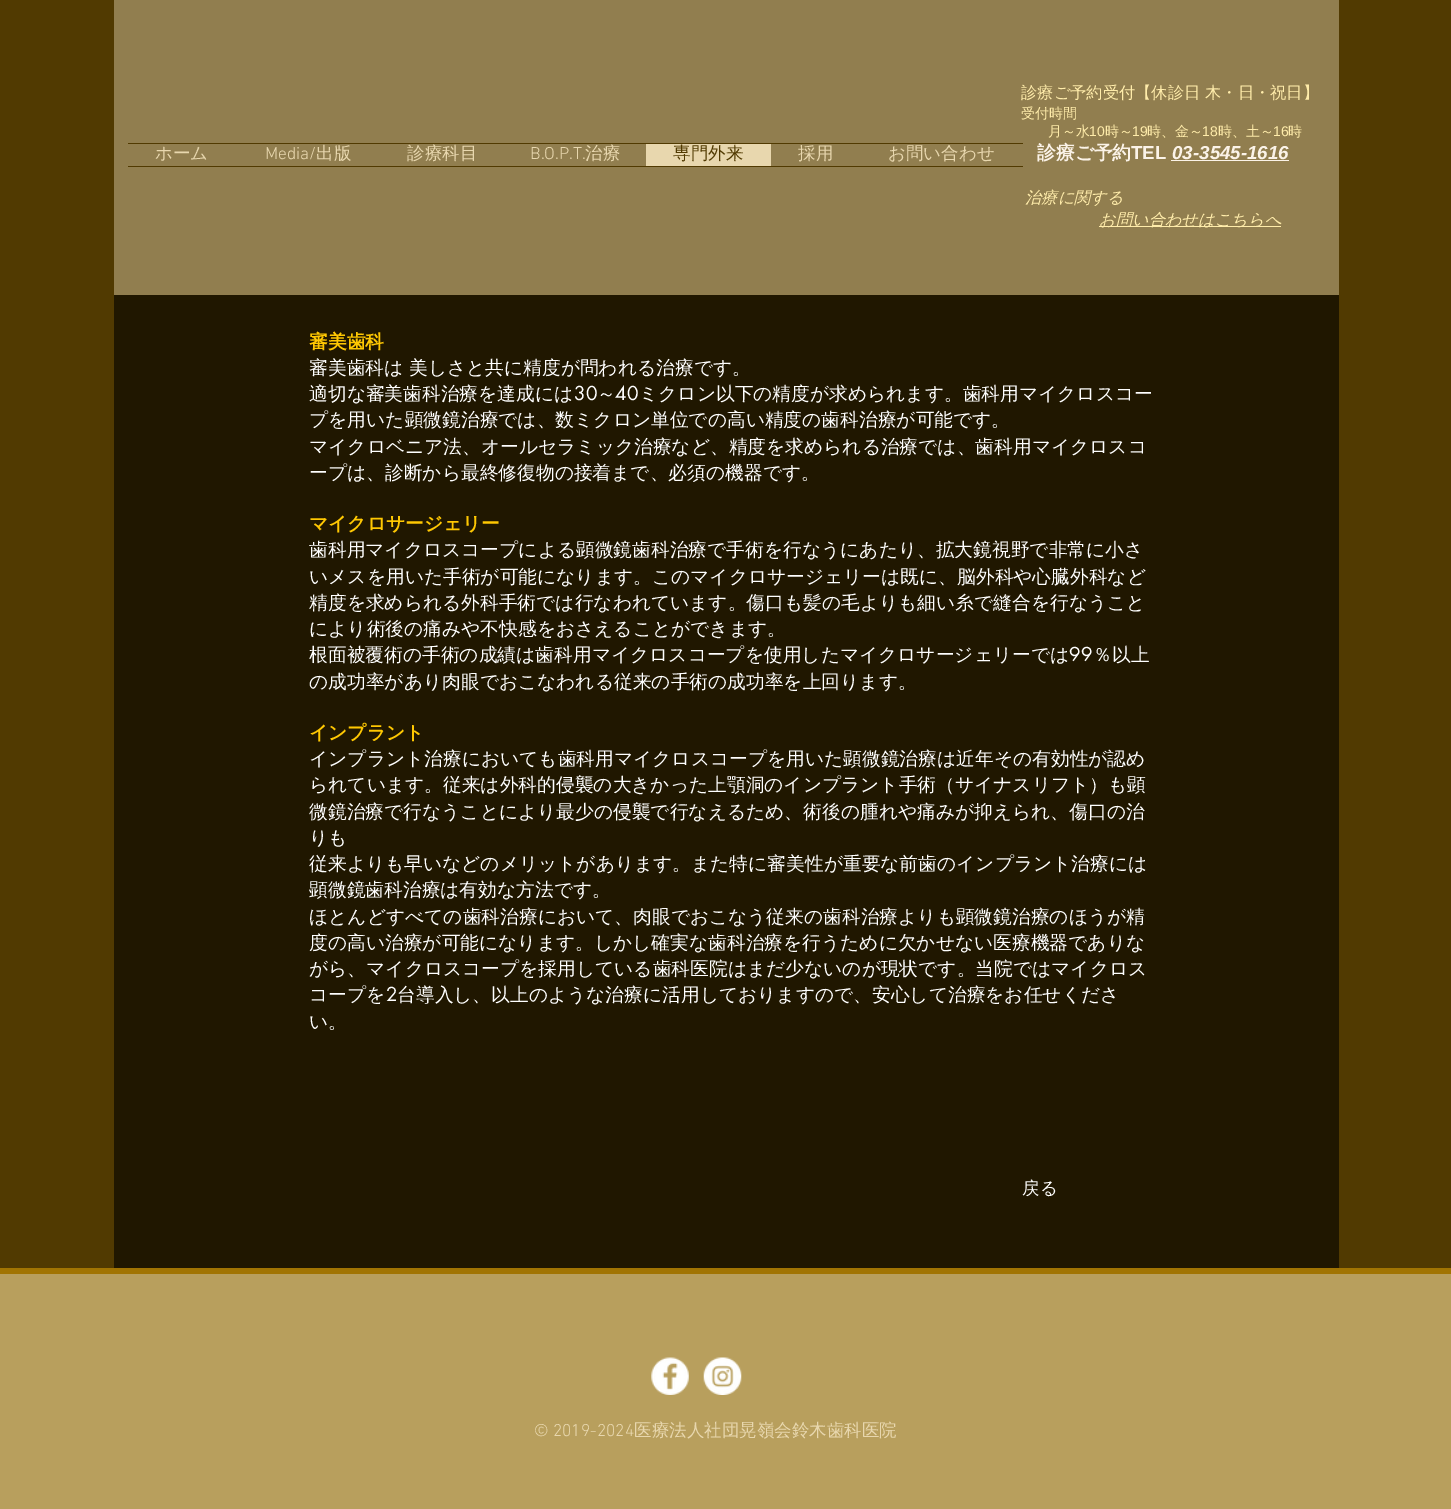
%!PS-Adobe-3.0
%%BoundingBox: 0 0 1451 1509
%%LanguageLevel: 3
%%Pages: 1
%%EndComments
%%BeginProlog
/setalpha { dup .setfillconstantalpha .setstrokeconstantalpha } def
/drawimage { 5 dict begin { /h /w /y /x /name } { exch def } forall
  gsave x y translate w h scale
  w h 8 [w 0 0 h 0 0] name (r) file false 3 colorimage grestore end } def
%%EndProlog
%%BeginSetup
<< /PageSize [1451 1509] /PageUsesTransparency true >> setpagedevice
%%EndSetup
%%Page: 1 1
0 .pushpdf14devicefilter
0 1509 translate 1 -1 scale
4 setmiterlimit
0.318 0.227 0.004 setrgbcolor
0 0 1451 1509 rectfill
0.125 0.09 0 setrgbcolor
114 0 1225 1268 rectfill
0.86 setalpha
0.318 0.227 0.004 setrgbcolor
114 0 1225 295 rectfill
0.45 setalpha
0.91 0.843 0.682 setrgbcolor
114 0 1225 295 rectfill
1 setalpha
0.318 0.227 0.004 setrgbcolor
128 143 895 1 rectfill
128 166 895 1 rectfill
0.91 0.843 0.682 setrgbcolor
646 144 125 22 rectfill
0.984 0.953 0.91 setrgbcolor
1171 160 118 1 rectfill
1 0.925 0.667 setrgbcolor
1099 226 182 1 rectfill
0.722 0.624 0.365 setrgbcolor
0 1274 1451 235 rectfill
0.631 0.455 0.008 setrgbcolor
0 1268 1451 6 rectfill
(images/1.raw) 651 1357 38 38 drawimage
(images/2.raw) 703 1357 39 38 drawimage
/WenQuanYiZenHei-Medium [17.5 0 0 -17.5 0 0] selectfont
0.91 0.843 0.682 setrgbcolor
155 159 moveto (ホーム) show
/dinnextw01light-Light [17.5 0 0 -17.5 0 0] selectfont
265 159 moveto (Media/) show
/WenQuanYiZenHei-Medium [17.5 0 0 -17.5 0 0] selectfont
316 159 moveto (出版) show
407 159 moveto (診療科目) show
/dinnextw01light-Light [17.5 0 0 -17.5 0 0] selectfont
530 159 moveto (B.O.P.T.) show
/WenQuanYiZenHei-Medium [17.5 0 0 -17.5 0 0] selectfont
585 159 moveto (治療) show
0.318 0.227 0.004 setrgbcolor
673 159 moveto (専門外来) show
0.91 0.843 0.682 setrgbcolor
798 159 moveto (採用) show
888 159 moveto (お問い合わせ) show
/WenQuanYiZenHei-Medium [16.25 0 0 -16.25 0 0] selectfont
1 0.925 0.667 setrgbcolor
1021 98 moveto (診療ご予約受付【休診日 木・日・祝日】) show
/WenQuanYiZenHei-Medium [14 0 0 -14 0 0] selectfont
1021 118 moveto (受付時間) show
1048 136 moveto (月～水) show
/LiberationSans-Regular [14 0 0 -14 0 0] selectfont
1089 136 moveto (10) show
/WenQuanYiZenHei-Medium [14 0 0 -14 0 0] selectfont
1105 136 moveto (時～) show
/LiberationSans-Regular [14 0 0 -14 0 0] selectfont
1132 136 moveto (19) show
/WenQuanYiZenHei-Medium [14 0 0 -14 0 0] selectfont
1147 136 moveto (時、金～) show
/LiberationSans-Regular [14 0 0 -14 0 0] selectfont
1202 136 moveto (18) show
/WenQuanYiZenHei-Medium [14 0 0 -14 0 0] selectfont
1218 136 moveto (時、土～) show
/LiberationSans-Regular [14 0 0 -14 0 0] selectfont
1273 136 moveto (16) show
/WenQuanYiZenHei-Medium [14 0 0 -14 0 0] selectfont
1288 136 moveto (時) show
/WenQuanYiZenHei-Bold [18.75 0 0 -18.75 0 0] selectfont
0.984 0.953 0.91 setrgbcolor
1037 159 moveto (診療ご予約) show
/LiberationSans-Bold [18.75 0 0 -18.75 0 0] selectfont
1131 159 moveto (TEL) show
/LiberationSans-BoldItalic [18.75 0 0 -18.75 0 0] selectfont
1172 159 moveto (03-3545-1616) show
/WenQuanYiZenHei-MediumItalic [16.25 0 0 -16.25 0 0] selectfont
1 0.925 0.667 setrgbcolor
1025 203 moveto (治療に関する) show
1099 225 moveto (お問い合わせはこちらへ) show
/WenQuanYiZenHei-Bold [18.75 0 0 -18.75 0 0] selectfont
1 0.784 0.008 setrgbcolor
309 348 moveto (審美歯科) show
/WenQuanYiZenHei-Medium [18.75 0 0 -18.75 0 0] selectfont
1 setgray
309 374 moveto (審美歯科は 美しさと共に精度が問われる治療です。) show
309 400 moveto (適切な審美歯科治療を達成には) show
/futura-Regular [18.75 0 0 -18.75 0 0] selectfont
574 400 moveto (30) show
/WenQuanYiZenHei-Medium [18.75 0 0 -18.75 0 0] selectfont
597 400 moveto (～) show
/futura-Regular [18.75 0 0 -18.75 0 0] selectfont
615 400 moveto (40) show
/WenQuanYiZenHei-Medium [18.75 0 0 -18.75 0 0] selectfont
639 400 moveto (ミクロン以下の精度が求められます。歯科用マイクロスコー) show
309 426 moveto (プを用いた顕微鏡治療では、数ミクロン単位での高い精度の歯科治療が可能です。) show
309 453 moveto (マイクロベニア法、オールセラミック治療など、精度を求められる治療では、歯科用マイクロスコ) show
309 479 moveto (ープは、診断から最終修復物の接着まで、必須の機器です。) show
/WenQuanYiZenHei-Bold [18.75 0 0 -18.75 0 0] selectfont
1 0.784 0.008 setrgbcolor
309 530 moveto (マイクロサージェリー) show
/WenQuanYiZenHei-Medium [18.75 0 0 -18.75 0 0] selectfont
1 setgray
309 556 moveto (歯科用マイクロスコープによる顕微鏡歯科治療で手術を行なうにあたり、拡大鏡視野で非常に小さ) show
309 583 moveto (いメスを用いた手術が可能になります。このマイクロサージェリーは既に、脳外科や心臓外科など) show
309 609 moveto (精度を求められる外科手術では行なわれています。傷口も髪の毛よりも細い糸で縫合を行なうこと) show
309 635 moveto (により術後の痛みや不快感をおさえることができます。) show
309 661 moveto (根面被覆術の手術の成績は歯科用マイクロスコープを使用したマイクロサージェリーでは) show
/futura-Regular [18.75 0 0 -18.75 0 0] selectfont
1069 661 moveto (99) show
/WenQuanYiZenHei-Medium [18.75 0 0 -18.75 0 0] selectfont
1093 661 moveto (％以上) show
309 688 moveto (の成功率があり肉眼でおこなわれる従来の手術の成功率を上回ります。) show
/WenQuanYiZenHei-Bold [18.75 0 0 -18.75 0 0] selectfont
1 0.784 0.008 setrgbcolor
309 739 moveto (インプラント) show
/WenQuanYiZenHei-Medium [18.75 0 0 -18.75 0 0] selectfont
1 setgray
309 765 moveto (インプラント治療においても歯科用マイクロスコープを用いた顕微鏡治療は近年その有効性が認め) show
309 791 moveto (られています。従来は外科的侵襲の大きかった上顎洞のインプラント手術（サイナスリフト）も顕) show
309 818 moveto (微鏡治療で行なうことにより最少の侵襲で行なえるため、術後の腫れや痛みが抑えられ、傷口の治) show
309 844 moveto (りも) show
309 870 moveto (従来よりも早いなどのメリットがあります。また特に審美性が重要な前歯のインプラント治療には) show
309 896 moveto (顕微鏡歯科治療は有効な方法です。) show
309 923 moveto (ほとんどすべての歯科治療において、肉眼でおこなう従来の歯科治療よりも顕微鏡治療のほうが精) show
309 949 moveto (度の高い治療が可能になります。しかし確実な歯科治療を行うために欠かせない医療機器でありな) show
309 975 moveto (がら、マイクロスコープを採用している歯科医院はまだ少ないのが現状です。当院ではマイクロス) show
309 1001 moveto (コープを) show
/futura-Regular [18.75 0 0 -18.75 0 0] selectfont
386 1001 moveto (2) show
/WenQuanYiZenHei-Medium [18.75 0 0 -18.75 0 0] selectfont
397 1001 moveto (台導入し、以上のような治療に活用しておりますので、安心して治療をお任せくださ) show
309 1028 moveto (い。) show
/WenQuanYiZenHei-Medium [17.5 0 0 -17.5 0 0] selectfont
1022 1194 moveto (戻る) show
/dinnextw01light-Light [17.5 0 0 -17.5 0 0] selectfont
0.91 0.843 0.682 setrgbcolor
534 1436 moveto (© 2019-2024) show
/WenQuanYiZenHei-Medium [17.5 0 0 -17.5 0 0] selectfont
634 1436 moveto (医療法人社団晃嶺会鈴木歯科医院) show
.poppdf14devicefilter showpage
%%EOF
